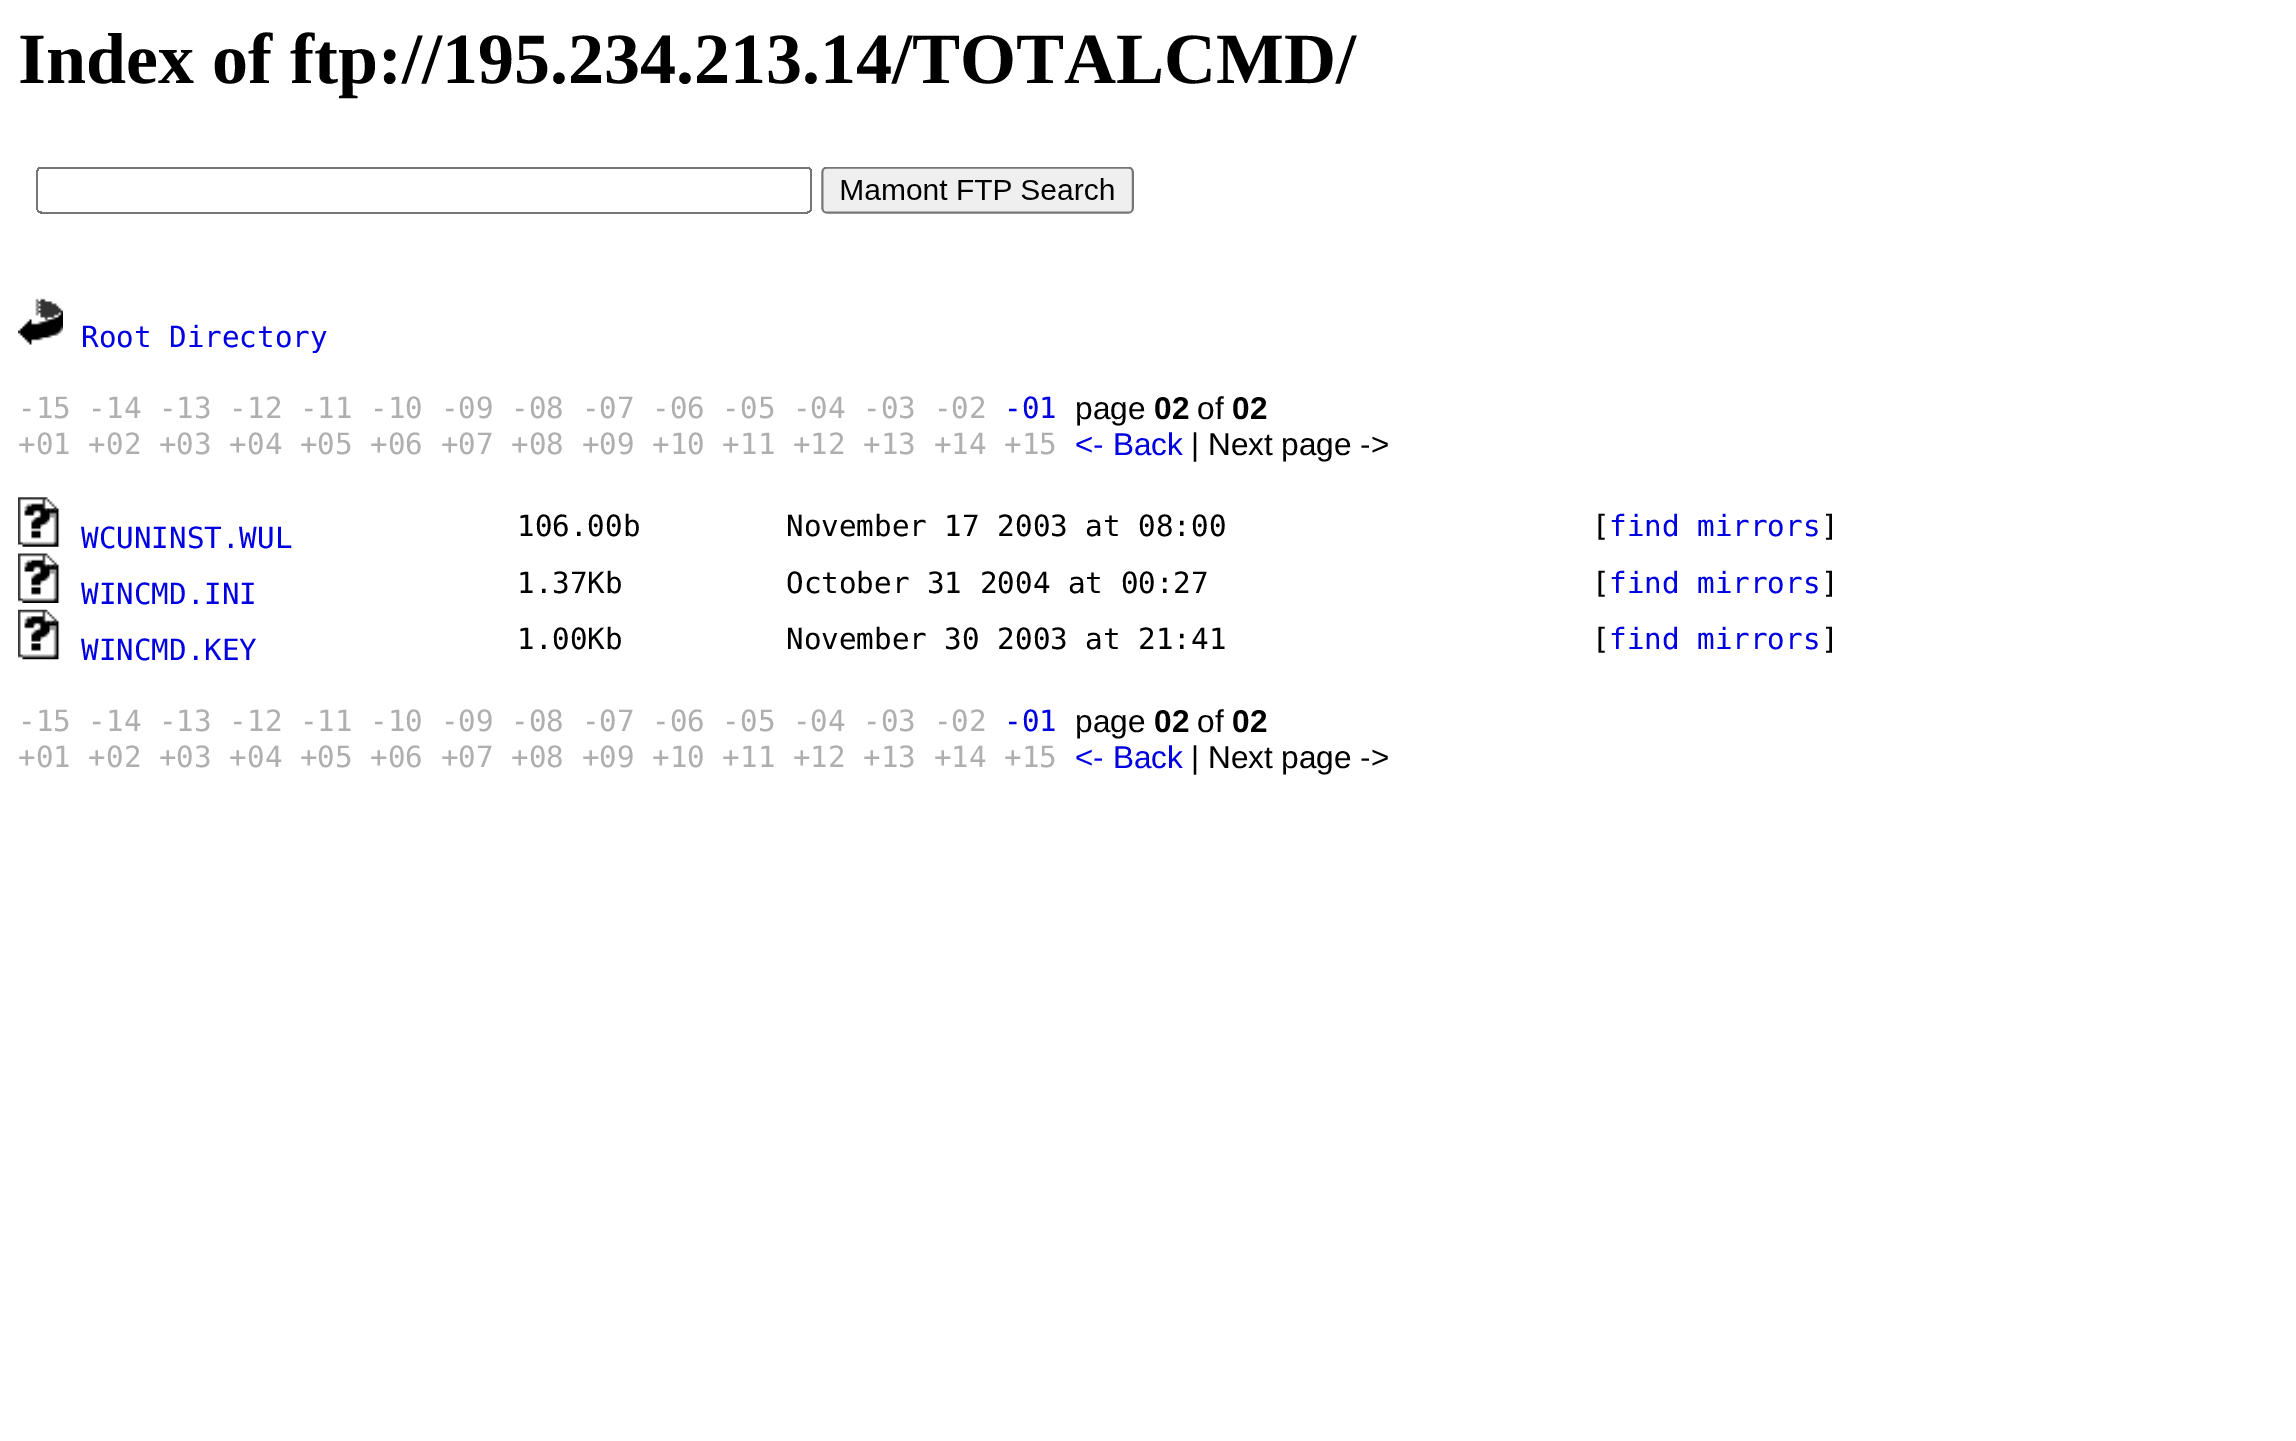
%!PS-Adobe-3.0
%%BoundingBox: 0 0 2296 1441
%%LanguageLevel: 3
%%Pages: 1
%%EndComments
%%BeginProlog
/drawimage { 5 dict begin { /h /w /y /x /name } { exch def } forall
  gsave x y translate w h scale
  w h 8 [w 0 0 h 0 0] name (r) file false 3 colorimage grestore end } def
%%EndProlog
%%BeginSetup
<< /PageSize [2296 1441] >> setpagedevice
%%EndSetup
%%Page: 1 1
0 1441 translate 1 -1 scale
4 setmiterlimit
1 setgray
0 0 2296 1441 rectfill
(images/1.raw) 36 167 1098 47 drawimage
(images/2.raw) 18 298 45 47 drawimage
(images/3.raw) 18 497 42 50 drawimage
(images/4.raw) 18 553 42 50 drawimage
(images/5.raw) 18 609 42 51 drawimage
/LiberationSerif-Bold [72 0 0 -72 0 0] selectfont
0 setgray
18 83 moveto (Index of ftp://195.234.213.14/TOTALCMD/) show
/DejaVuSansMono-Regular [29.25 0 0 -29.25 0 0] selectfont
0 0 0.886 setrgbcolor
81 347 moveto (Root Directory) show
0.686 setgray
18 418 moveto (-15 -14 -13 -12 -11 -10 -09 -08 -07 -06 -05 -04 -03 -02) show
0 0 0.886 setrgbcolor
1004 418 moveto (-01) show
/LiberationSans-Regular [31.5 0 0 -31.5 0 0] selectfont
0 setgray
1075 419 moveto (page) show
/LiberationSans-Bold [31.5 0 0 -31.5 0 0] selectfont
1154 419 moveto (02) show
/LiberationSans-Regular [31.5 0 0 -31.5 0 0] selectfont
1197 419 moveto (of) show
/LiberationSans-Bold [31.5 0 0 -31.5 0 0] selectfont
1232 419 moveto (02) show
/DejaVuSansMono-Regular [29.25 0 0 -29.25 0 0] selectfont
0.686 setgray
18 454 moveto (+01 +02 +03 +04 +05 +06 +07 +08 +09 +10 +11 +12 +13 +14 +15) show
/LiberationSans-Regular [31.5 0 0 -31.5 0 0] selectfont
0 0 0.886 setrgbcolor
1075 455 moveto (<- Back) show
0 setgray
1191 455 moveto (| Next page ->) show
/DejaVuSansMono-Regular [29.25 0 0 -29.25 0 0] selectfont
0 0 0.886 setrgbcolor
81 548 moveto (WCUNINST.WUL) show
0 setgray
517 536 moveto (106.00b) show
786 536 moveto (November 17 2003 at 08:00) show
1592 536 moveto ([) show
0 0 0.886 setrgbcolor
1609 536 moveto (find mirrors) show
0 setgray
1821 536 moveto (]) show
0 0 0.886 setrgbcolor
81 604 moveto (WINCMD.INI) show
0 setgray
517 593 moveto (1.37Kb) show
786 593 moveto (October 31 2004 at 00:27) show
1592 593 moveto ([) show
0 0 0.886 setrgbcolor
1609 593 moveto (find mirrors) show
0 setgray
1821 593 moveto (]) show
0 0 0.886 setrgbcolor
81 660 moveto (WINCMD.KEY) show
0 setgray
517 649 moveto (1.00Kb) show
786 649 moveto (November 30 2003 at 21:41) show
1592 649 moveto ([) show
0 0 0.886 setrgbcolor
1609 649 moveto (find mirrors) show
0 setgray
1821 649 moveto (]) show
0.686 setgray
18 731 moveto (-15 -14 -13 -12 -11 -10 -09 -08 -07 -06 -05 -04 -03 -02) show
0 0 0.886 setrgbcolor
1004 731 moveto (-01) show
/LiberationSans-Regular [31.5 0 0 -31.5 0 0] selectfont
0 setgray
1075 732 moveto (page) show
/LiberationSans-Bold [31.5 0 0 -31.5 0 0] selectfont
1154 732 moveto (02) show
/LiberationSans-Regular [31.5 0 0 -31.5 0 0] selectfont
1197 732 moveto (of) show
/LiberationSans-Bold [31.5 0 0 -31.5 0 0] selectfont
1232 732 moveto (02) show
/DejaVuSansMono-Regular [29.25 0 0 -29.25 0 0] selectfont
0.686 setgray
18 767 moveto (+01 +02 +03 +04 +05 +06 +07 +08 +09 +10 +11 +12 +13 +14 +15) show
/LiberationSans-Regular [31.5 0 0 -31.5 0 0] selectfont
0 0 0.886 setrgbcolor
1075 768 moveto (<- Back) show
0 setgray
1191 768 moveto (| Next page ->) show
showpage
%%EOF
